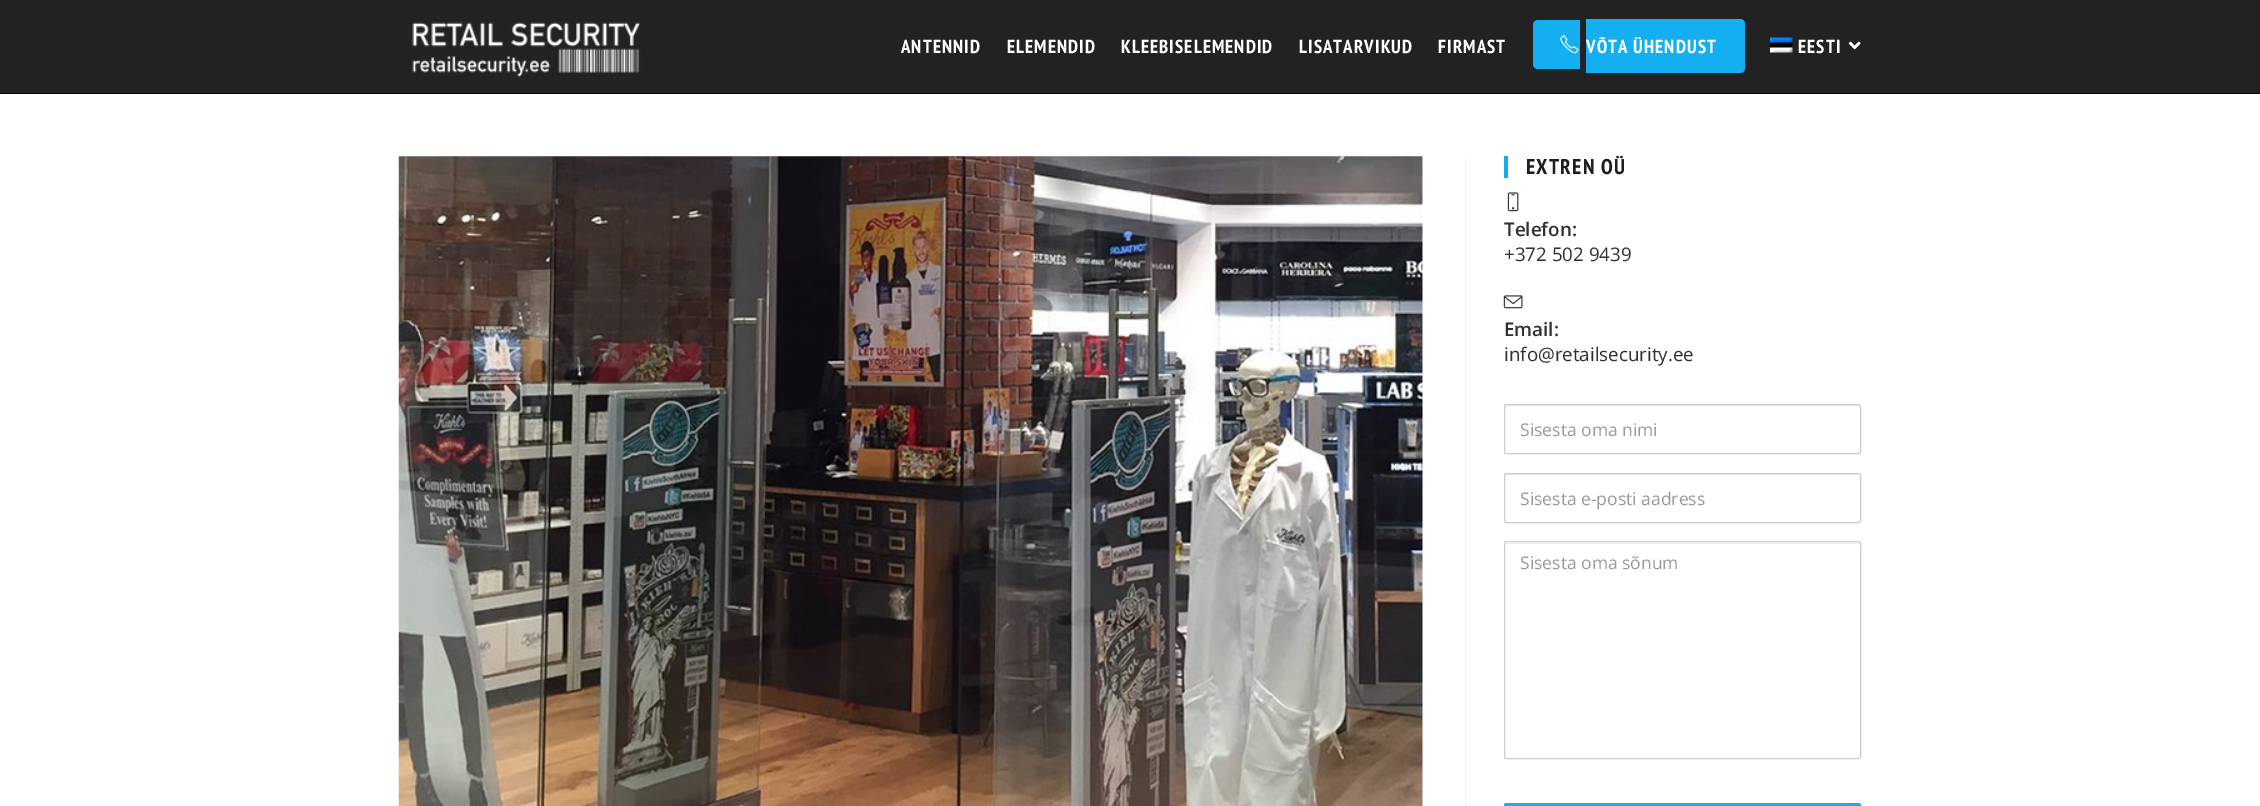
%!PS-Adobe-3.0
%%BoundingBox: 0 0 2260 806
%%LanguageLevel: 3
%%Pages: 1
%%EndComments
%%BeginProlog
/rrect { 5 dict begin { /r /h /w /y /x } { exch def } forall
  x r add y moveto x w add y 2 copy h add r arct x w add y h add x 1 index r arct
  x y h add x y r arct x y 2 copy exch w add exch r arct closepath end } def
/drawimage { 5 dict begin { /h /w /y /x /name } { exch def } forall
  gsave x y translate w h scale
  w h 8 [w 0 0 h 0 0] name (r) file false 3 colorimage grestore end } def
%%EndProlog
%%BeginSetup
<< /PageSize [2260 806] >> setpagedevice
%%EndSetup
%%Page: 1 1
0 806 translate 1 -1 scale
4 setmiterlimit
1 setgray
0 0 2260 806 rectfill
0.133 setgray
0 0 2260 93 rectfill
0.008 setgray
0 93 2260 1 rectfill
(images/1.raw) 412 22 229 55 drawimage
0.075 0.686 0.941 setrgbcolor
newpath 1538 20 moveto 1580 20 lineto 1580 69 lineto 1538 69 lineto 1535 69 1533 67 1533 64 curveto 1533 25 lineto 1533 22 1535 20 1538 20 curveto closepath fill
(images/2.raw) 1560 35 19 19 drawimage
newpath 1586 19 moveto 1740 19 lineto 1743 19 1745 21 1745 24 curveto 1745 68 lineto 1745 71 1743 73 1740 73 curveto 1586 73 lineto closepath fill
(images/3.raw) 1770 37 23 16 drawimage
(images/4.raw) 1848 41 13 9 drawimage
0.945 setgray
1465 156 1 650 rectfill
(images/5.raw) 398 156 1025 650 drawimage
0.075 0.686 0.941 setrgbcolor
1504 156 4 22 rectfill
(images/6.raw) 1507 192 12 20 drawimage
(images/7.raw) 1503 295 20 14 drawimage
0.925 setgray
newpath 1506 406 moveto 1859 406 lineto 1860 408 lineto 1860 407 1860 405 1859 405 curveto 1505 405 lineto 1505 408 lineto closepath fill
0.8 setgray
1504.5 404.5 356 49 2 rrect stroke
0.925 setgray
newpath 1506 475 moveto 1859 475 lineto 1860 476 lineto 1860 474 lineto 1682 474 lineto 1506 474 lineto 1505 475 lineto 1505 476 lineto closepath fill
0.8 setgray
1504.5 473.5 356 49 2 rrect stroke
0.925 setgray
newpath 1506 544 moveto 1859 544 lineto 1860 545 lineto 1860 543 lineto 1506 543 lineto 1505 544 lineto 1505 545 lineto closepath fill
0.8 setgray
1504.5 541.5 356 217 2 rrect stroke
0.075 0.686 0.941 setrgbcolor
1504 803 357 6 2.5 rrect fill
/PTSansNarrow-Bold [18.75 0 0 -18.75 0 0] selectfont
1 setgray
901 53 moveto 1.1 0 (ANTENNID) ashow
1007 53 moveto 1.1 0 (ELEMENDID) ashow
1121 53 moveto 1.1 0 (KLEEBISELEMENDID) ashow
1299 53 moveto 1.1 0 (LISATARVIKUD) ashow
1438 53 moveto 1.1 0 (FIRMAST) ashow
1586 53 moveto 1.1 0 (VÕTA ÜHENDUST) ashow
1798 53 moveto 1.1 0 (EESTI) ashow
/PTSansNarrow-Bold [21.25 0 0 -21.25 0 0] selectfont
0.118 setgray
1526 174 moveto 1.25 0 (EXTREN OÜ) ashow
/OpenSans-SemiBold [18.75 0 0 -18.75 0 0] selectfont
0.188 setgray
1504 236 moveto (Telefon:) show
/OpenSans-Regular [18.75 0 0 -18.75 0 0] selectfont
1504 261 moveto (+372 502 9439) show
/OpenSans-SemiBold [18.75 0 0 -18.75 0 0] selectfont
1504 336 moveto (Email:) show
/OpenSans-Regular [18.75 0 0 -18.75 0 0] selectfont
1504 361 moveto (info@retailsecurity.ee) show
/OpenSans-Regular [17.5 0 0 -17.5 0 0] selectfont
0.6 setgray
1520 436 moveto (Sisesta oma nimi) show
1520 505 moveto (Sisesta e-posti aadress) show
1520 569 moveto (Sisesta oma sõnum) show
showpage
%%EOF
